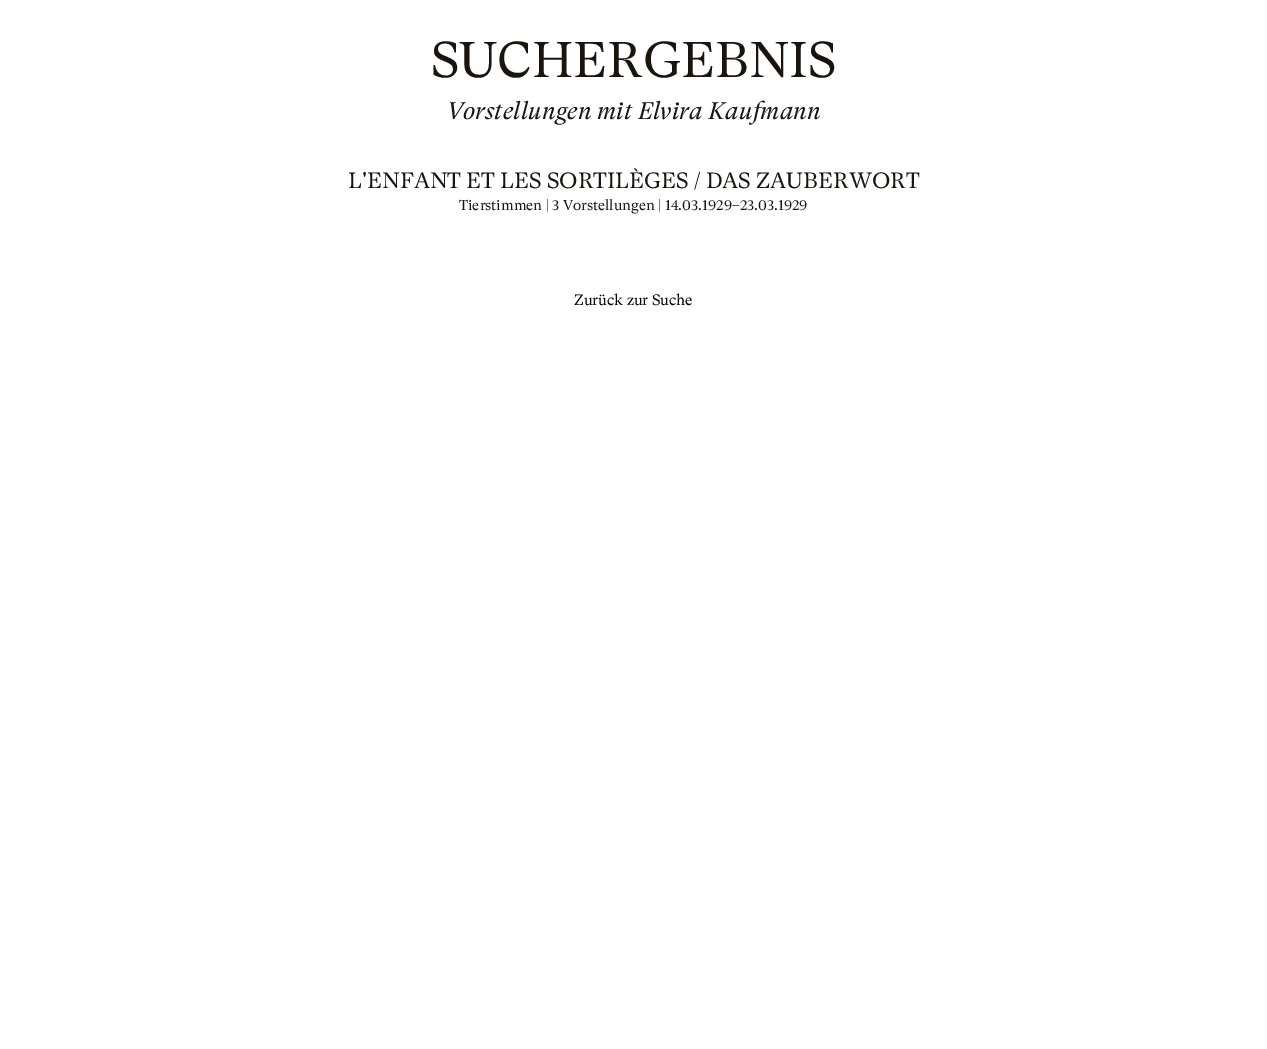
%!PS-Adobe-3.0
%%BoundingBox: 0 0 1267 1049
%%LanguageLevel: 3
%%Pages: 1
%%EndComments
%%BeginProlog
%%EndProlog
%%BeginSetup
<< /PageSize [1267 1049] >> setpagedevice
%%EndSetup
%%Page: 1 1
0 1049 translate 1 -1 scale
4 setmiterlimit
1 setgray
0 0 1267 1049 rectfill
/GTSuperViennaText-Regular [50 0 0 -50 0 0] selectfont
0.098 0.078 0.055 setrgbcolor
431 77 moveto (SUCHERGEBNIS) show
/GTSuperViennaText-Italic [24 0 0 -24 0 0] selectfont
447 119 moveto (Vorstellungen mit Elvira Kaufmann) show
/GTSuperViennaText-Regular [22 0 0 -22 0 0] selectfont
348 188 moveto (L'ENFANT ET LES SORTILÈGES / DAS ZAUBERWORT) show
/GTSuperViennaText-Regular [14.4 0 0 -14.4 0 0] selectfont
459 210 moveto (Tierstimmen | 3 Vorstellungen | 14.03.1929–23.03.1929) show
/GTSuperViennaText-Regular [15 0 0 -15 0 0] selectfont
0 setgray
574 305 moveto (Zurück zur Suche) show
showpage
%%EOF
